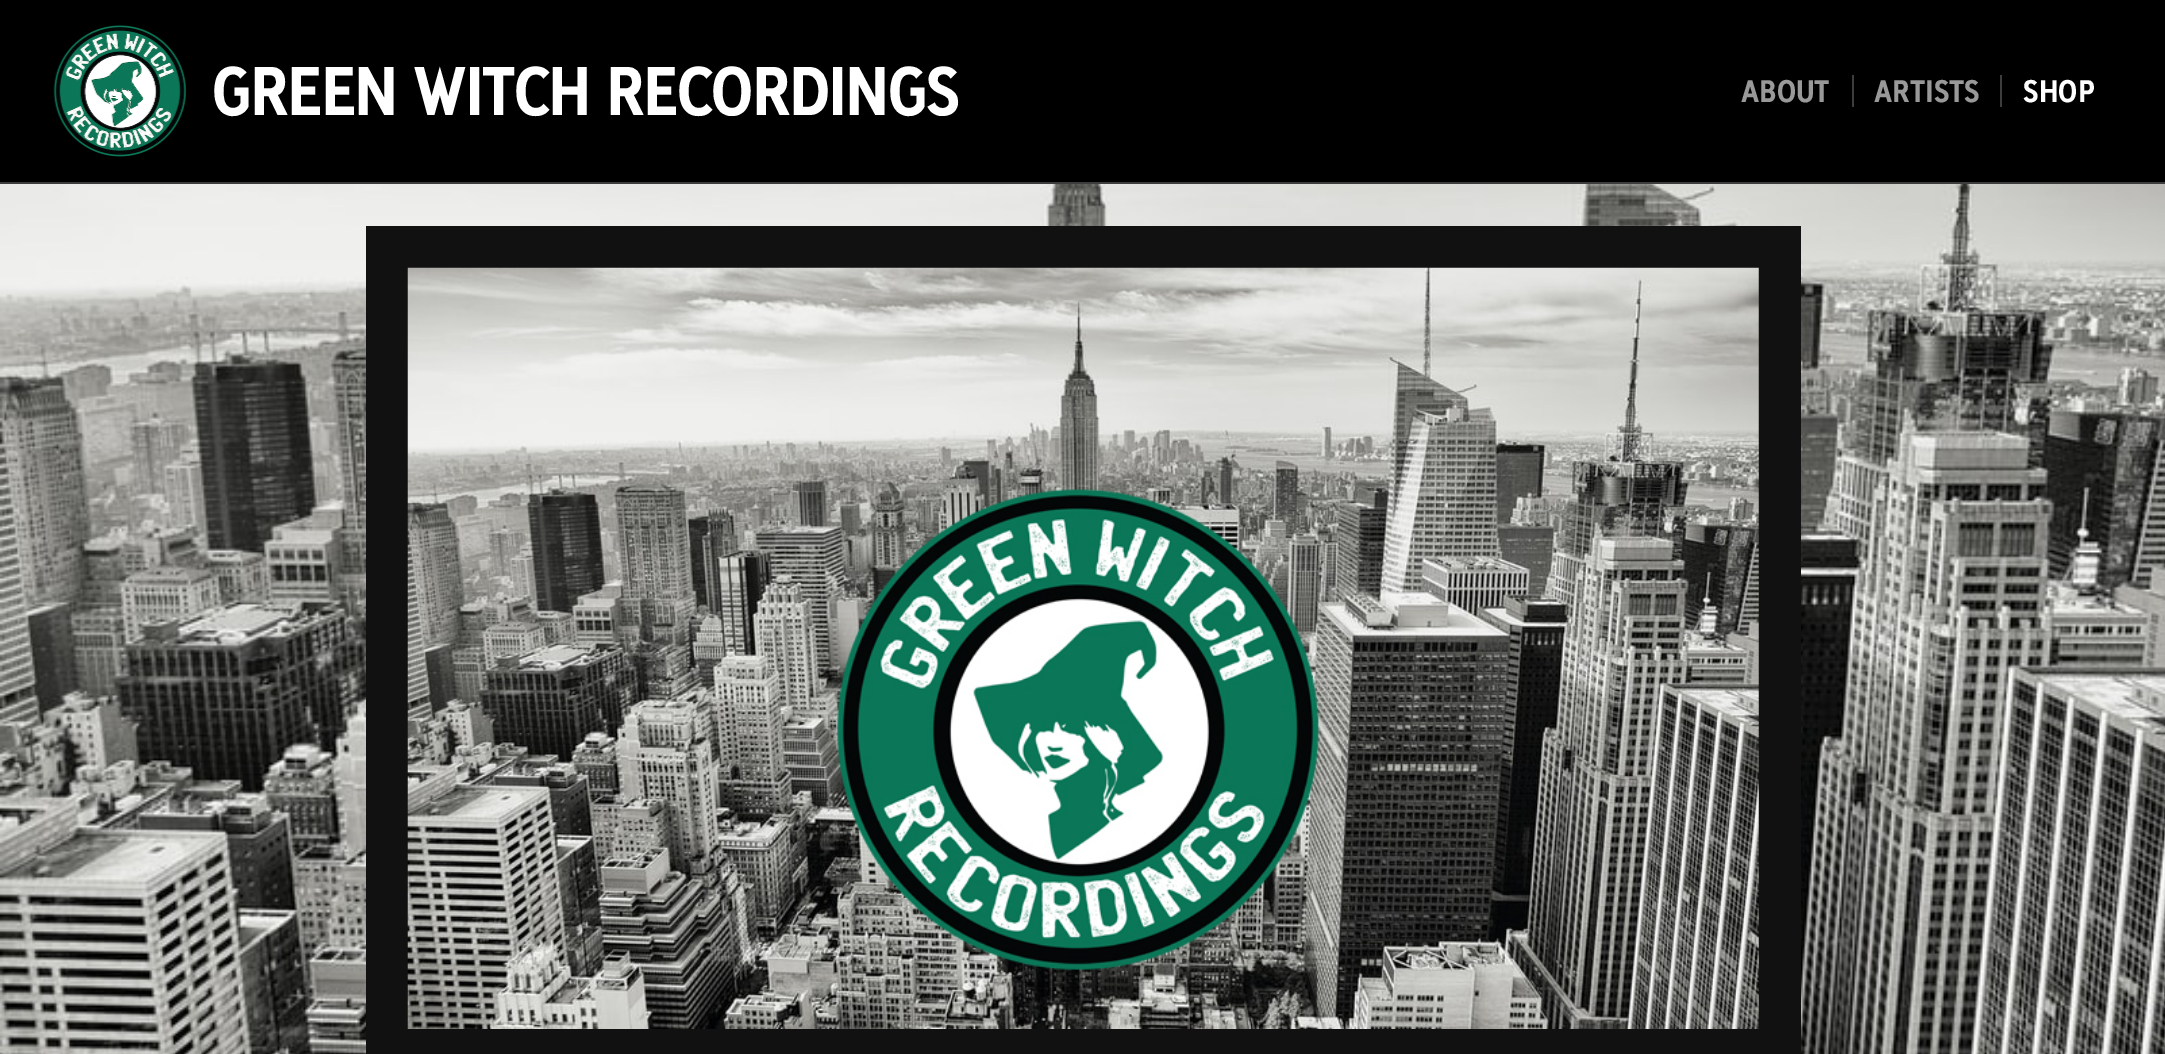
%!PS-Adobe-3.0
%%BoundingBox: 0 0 2165 1054
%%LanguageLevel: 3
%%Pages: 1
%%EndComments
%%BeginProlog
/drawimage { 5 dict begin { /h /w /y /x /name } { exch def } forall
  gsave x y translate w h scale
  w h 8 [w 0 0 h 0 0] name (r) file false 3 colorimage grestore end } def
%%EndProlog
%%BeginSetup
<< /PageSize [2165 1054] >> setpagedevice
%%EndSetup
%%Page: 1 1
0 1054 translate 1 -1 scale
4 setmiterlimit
1 setgray
0 0 2165 1054 rectfill
0 setgray
0 0 2165 182 rectfill
0.239 setgray
0 182 2165 2 rectfill
(images/1.raw) 53 25 134 132 drawimage
1852 75 2 32 rectfill
2000 75 2 32 rectfill
(images/3.raw) 0 184 2165 870 drawimage
0.067 setgray
366 226 1435 828 rectfill
(images/2.raw) 407 267 1352 762 drawimage
/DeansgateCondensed-Bold [61.6 0 0 -61.6 0 0] selectfont
1 setgray
212 115 moveto -1.75 0 (GREEN WITCH RECORDINGS) ashow
/DeansgateCondensed-Bold [28 0 0 -28 0 0] selectfont
0.6 setgray
1741 102 moveto (ABOUT) show
1874 102 moveto (ARTISTS) show
1 setgray
2023 102 moveto (SHOP) show
showpage
%%EOF
